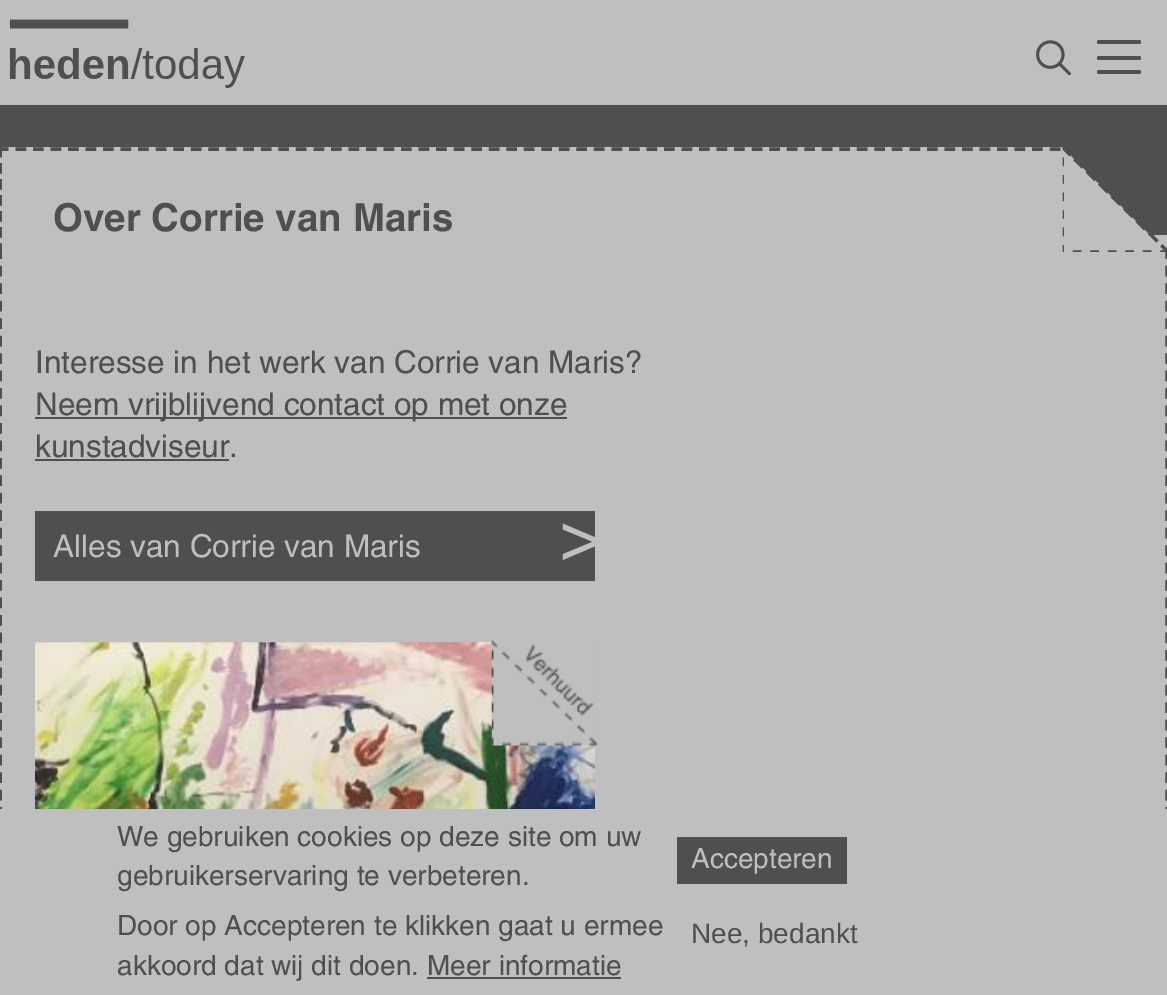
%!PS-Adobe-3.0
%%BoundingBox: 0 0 1167 995
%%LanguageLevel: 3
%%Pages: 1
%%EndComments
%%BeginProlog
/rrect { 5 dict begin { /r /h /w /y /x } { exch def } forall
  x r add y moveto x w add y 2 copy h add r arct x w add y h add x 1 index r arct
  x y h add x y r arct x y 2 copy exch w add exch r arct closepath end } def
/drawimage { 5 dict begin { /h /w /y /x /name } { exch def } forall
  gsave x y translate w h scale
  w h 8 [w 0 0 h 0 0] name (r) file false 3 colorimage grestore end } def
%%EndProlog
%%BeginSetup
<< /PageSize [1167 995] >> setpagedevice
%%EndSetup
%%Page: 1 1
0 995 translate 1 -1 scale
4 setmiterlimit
0.749 setgray
0 0 1167 995 rectfill
(images/1.raw) 9 19 236 69 drawimage
(images/2.raw) 1036 40 35 35 drawimage
0.31 setgray
1097 40 44 4 2 rrect fill
1097 56 44 4 2 rrect fill
1097 70 44 4 2 rrect fill
0 105 1167 130 rectfill
3.5 setlinewidth
[10.5 6.96] 0 setdash
newpath 0 248.5 moveto 0 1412 lineto stroke
0.749 setgray
0 147 1062 105 rectfill
0.31 setgray
[10.5 7.03] 0 setdash
newpath -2 149 moveto 1060.5 149 lineto stroke
[10.5 5.55] 0 setdash
newpath 0 147 moveto 0 254 lineto stroke
[10.5 6.96] 0 setdash
newpath 1167 248.5 moveto 1167 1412 lineto stroke
0.749 setgray
newpath 1062 252 moveto 1062 147 lineto 1167 252 lineto closepath fill
(images/3.raw) 1062 147 105 105 drawimage
0.31 setgray
35 417 532 2 rectfill
35 459 194 2 rectfill
35 511 560 70 rectfill
(images/5.raw) 35 642 560 167 drawimage
(images/4.raw) 491 640 106 106 drawimage
0.749 setgray
0 809 1167 184 rectfill
0.31 setgray
427 977 194 2 rectfill
677 837 170 47 rectfill
/Helvetica-Bold [38.5 0 0 -38.5 0 0] selectfont
53 231 moveto (Over Corrie van Maris) show
/Helvetica-Regular [31.5 0 0 -31.5 0 0] selectfont
35 373 moveto (Interesse in het werk van Corrie van Maris?) show
35 415 moveto (Neem vrijblijvend contact op met onze) show
35 457 moveto (kunstadviseur) show
229 457 moveto (.) show
0.749 setgray
53 557 moveto (Alles van Corrie van Maris) show
/Helvetica-Regular [76 0 0 -76 0 0] selectfont
559 561 moveto -26 0 (>) ashow
/Helvetica-Regular [28 0 0 -28 0 0] selectfont
0.31 setgray
117 846 moveto (We gebruiken cookies op deze site om uw) show
117 885 moveto (gebruikerservaring te verbeteren.) show
117 935 moveto (Door op Accepteren te klikken gaat u ermee) show
117 975 moveto (akkoord dat wij dit doen.) show
427 975 moveto (Meer informatie) show
0.749 setgray
691 868 moveto (Accepteren) show
/LiberationSans-Regular [28 0 0 -28 0 0] selectfont
0.31 setgray
691 943 moveto (Nee, bedankt) show
showpage
%%EOF
